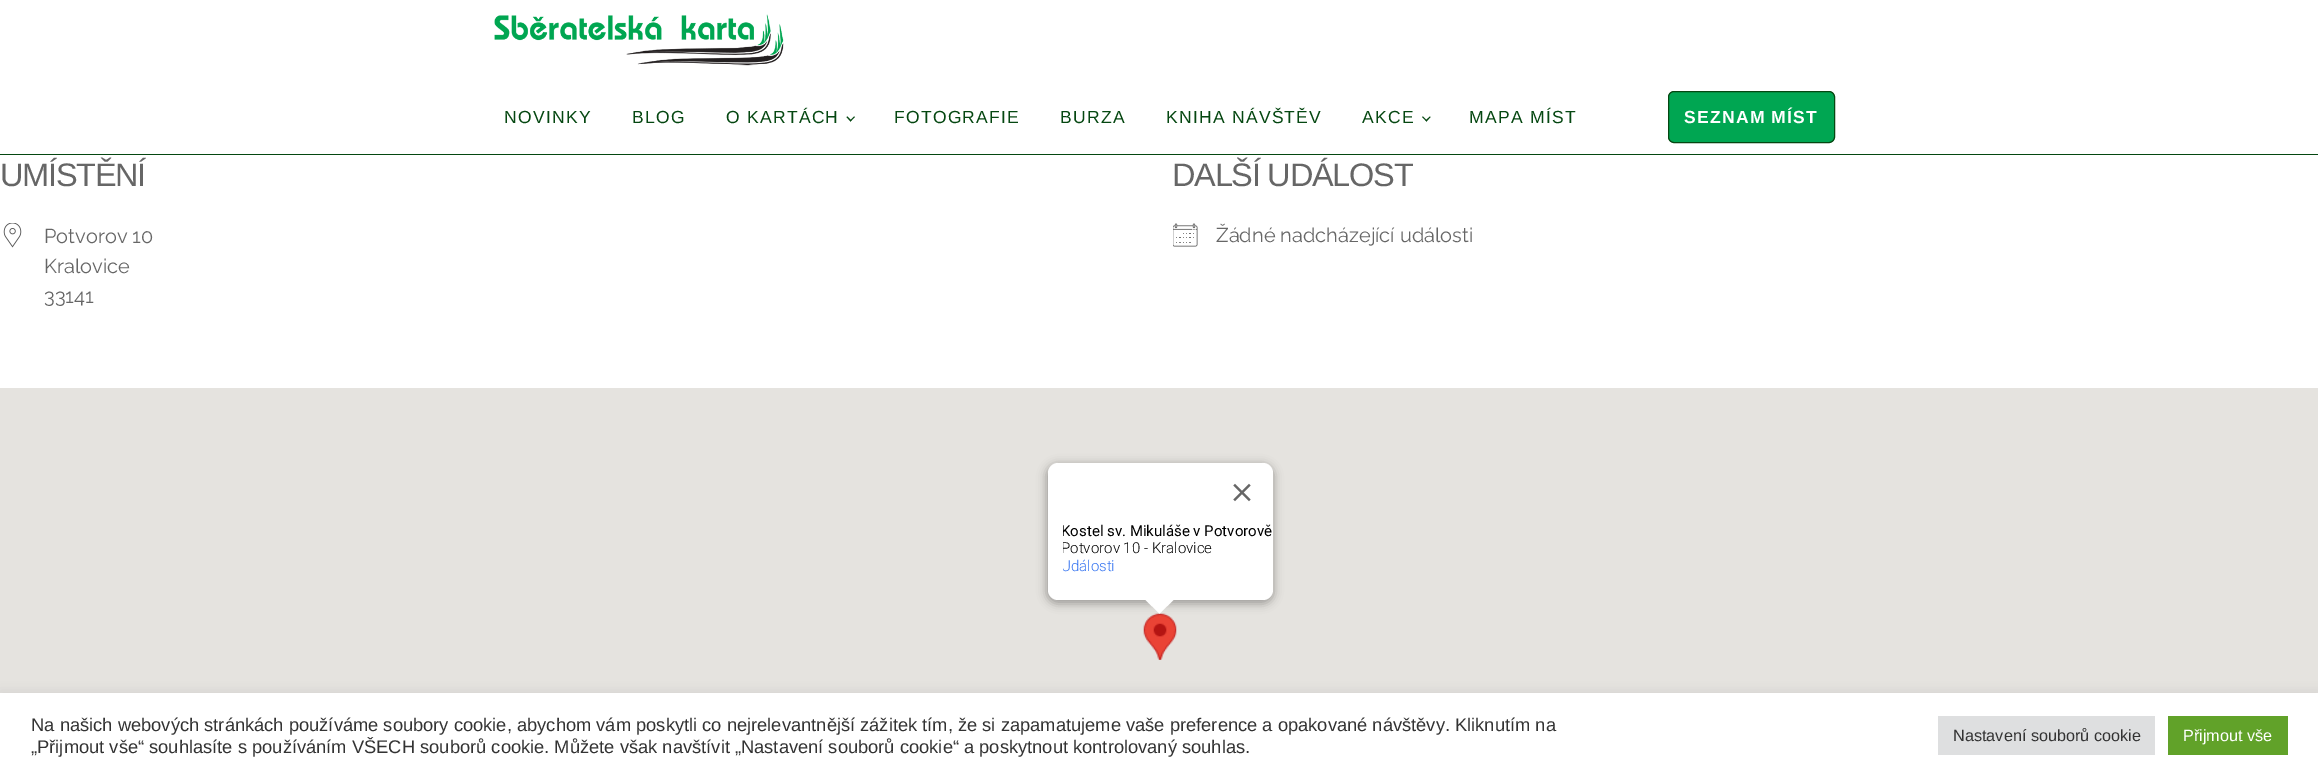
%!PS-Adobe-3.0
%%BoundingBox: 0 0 2318 778
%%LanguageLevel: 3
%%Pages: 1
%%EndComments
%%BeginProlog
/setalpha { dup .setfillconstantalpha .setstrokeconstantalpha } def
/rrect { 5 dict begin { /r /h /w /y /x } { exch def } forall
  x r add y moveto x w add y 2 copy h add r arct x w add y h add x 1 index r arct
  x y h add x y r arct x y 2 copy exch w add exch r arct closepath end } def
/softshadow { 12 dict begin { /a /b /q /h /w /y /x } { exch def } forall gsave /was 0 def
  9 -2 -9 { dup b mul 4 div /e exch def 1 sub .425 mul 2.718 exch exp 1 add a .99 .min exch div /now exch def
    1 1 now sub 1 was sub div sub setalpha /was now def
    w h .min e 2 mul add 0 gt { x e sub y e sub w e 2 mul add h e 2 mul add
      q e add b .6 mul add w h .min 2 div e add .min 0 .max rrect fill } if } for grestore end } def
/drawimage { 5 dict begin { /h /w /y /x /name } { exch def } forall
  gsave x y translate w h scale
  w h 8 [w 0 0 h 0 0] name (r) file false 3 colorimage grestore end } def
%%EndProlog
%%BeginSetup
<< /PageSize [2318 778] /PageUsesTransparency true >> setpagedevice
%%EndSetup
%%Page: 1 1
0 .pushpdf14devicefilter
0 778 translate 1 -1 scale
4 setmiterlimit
1 setgray
0 0 2318 778 rectfill
(images/1.raw) 494 14 290 52 drawimage
0.02 0.278 0.067 setrgbcolor
0 154 2318 1 rectfill
newpath 855 117 moveto 850.5 121.5 lineto 850 120.5 lineto 854 116.5 lineto closepath fill
newpath 851.5 120.5 moveto 850.5 121.5 lineto 846.5 117 lineto 847.5 116.5 lineto closepath fill
newpath 1430.5 117 moveto 1426.5 121.5 lineto 1425.5 120.5 lineto 1430 116.5 lineto closepath fill
newpath 1427 120.5 moveto 1426.5 121.5 lineto 1422 117 lineto 1423 116.5 lineto closepath fill
0 0.651 0.322 setrgbcolor
1668.5 91.5 166 51 5.5 rrect gsave fill grestore
0.02 0.278 0.067 setrgbcolor
stroke
(images/2.raw) 3 223 19 25 drawimage
(images/3.raw) 1173 223 25 24 drawimage
0.898 0.89 0.875 setrgbcolor
0 388 2318 305 rectfill
(images/5.raw) 1143 613 34 47 drawimage
0 setgray
1046 464 228 140 11 4.5 0.3 softshadow
1 setgray
1048 463 225 137 10 rrect fill
(images/4.raw) 1233 483 18 19 drawimage
newpath 1145 599 moveto 1145 599.5 lineto 1159.5 613.5 lineto 1174.5 599 lineto closepath fill
0.675 0.671 0.671 setrgbcolor
0 691 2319 87 0 6 0.3 softshadow
1 setgray
0 693 2318 85 rectfill
0.871 0.875 0.878 setrgbcolor
1938 716 217 39 rectfill
0.38 0.635 0.161 setrgbcolor
2168 716 120 39 rectfill
/LiberationSans-Regular [17.5 0 0 -17.5 0 0] selectfont
0.02 0.278 0.067 setrgbcolor
504 123 moveto 1.25 0 (NOVINKY) ashow
632 123 moveto 1.25 0 (BLOG) ashow
726 123 moveto 1.25 0 (O KARTÁCH) ashow
894 123 moveto 1.25 0 (FOTOGRAFIE) ashow
1060 123 moveto 1.25 0 (BURZA) ashow
1166 123 moveto 1.25 0 (KNIHA NÁVŠTĚV) ashow
1362 123 moveto 1.25 0 (AKCE) ashow
1469 123 moveto 1.25 0 (MAPA MÍST) ashow
/LiberationSans-Bold [17.5 0 0 -17.5 0 0] selectfont
1 setgray
1684 123 moveto 1.25 0 (SEZNAM MÍST) ashow
/LiberationSans-Regular [32.5 0 0 -32.5 0 0] selectfont
0.4 setgray
0 186 moveto -1.25 0 (UMÍSTĚNÍ) ashow
/Raleway-Regular [20 0 0 -20 0 0] selectfont
44 243 moveto (Potvorov 10) show
44 273 moveto (Kralovice) show
44 303 moveto (33141) show
/LiberationSans-Regular [32.5 0 0 -32.5 0 0] selectfont
1172 186 moveto -1.25 0 (DALŠÍ UDÁLOST) ashow
/Raleway-Regular [20 0 0 -20 0 0] selectfont
1216 242 moveto (Žádné nadcházející události) show
gsave
1063 523 210 77 rectclip
/Roboto-Regular [15 0 0 -15 0 0] selectfont
0 setgray
1061 536 moveto (Kostel sv. Mikuláše v Potvorově) show
/Roboto-Light [15 0 0 -15 0 0] selectfont
1061 553 moveto (Potvorov 10 - Kralovice) show
0.2 0.447 0.941 setrgbcolor
1061 571 moveto (Události) show
grestore
/LiberationSans-Regular [18.33 0 0 -18.33 0 0] selectfont
0.2 setgray
31 731 moveto (Na našich webových stránkách používáme soubory cookie, abychom vám poskytli co nejrelevantnější zážitek tím, že si zapamatujeme vaše preference a opakované návštěvy. Kliknutím na) show
31 753 moveto („Přijmout vše“ souhlasíte s používáním VŠECH souborů cookie. Můžete však navštívit „Nastavení souborů cookie“ a poskytnout kontrolovaný souhlas.) show
/LiberationSans-Regular [16.25 0 0 -16.25 0 0] selectfont
1953 741 moveto (Nastavení souborů cookie) show
1 setgray
2183 741 moveto (Přijmout vše) show
.poppdf14devicefilter showpage
%%EOF
